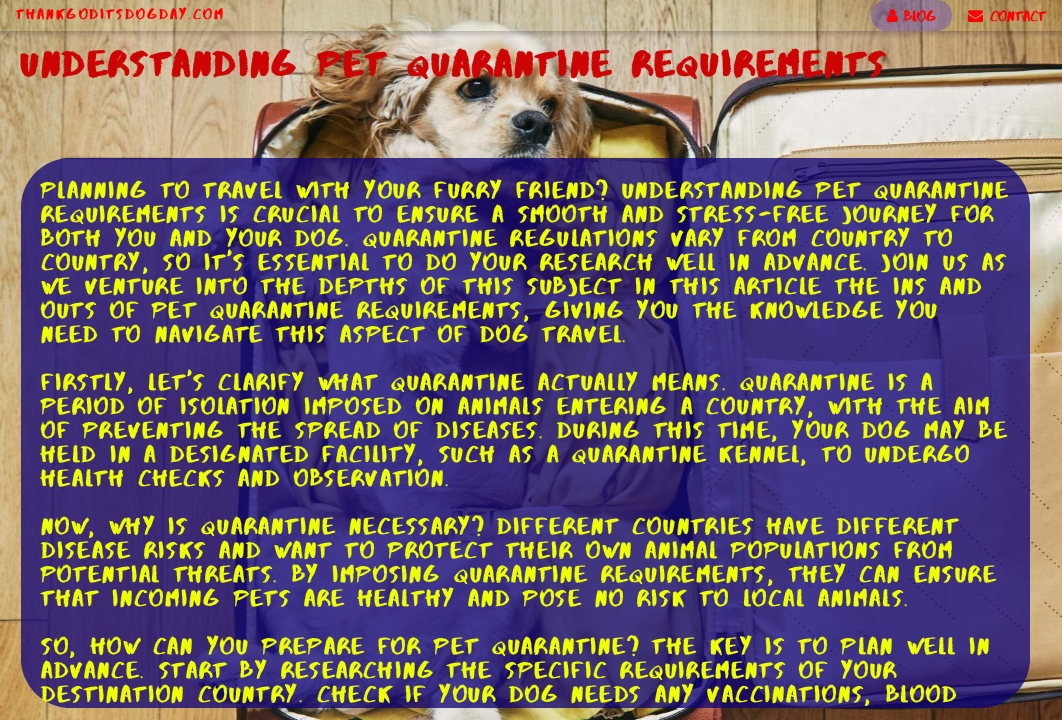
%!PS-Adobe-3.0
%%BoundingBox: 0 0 1062 720
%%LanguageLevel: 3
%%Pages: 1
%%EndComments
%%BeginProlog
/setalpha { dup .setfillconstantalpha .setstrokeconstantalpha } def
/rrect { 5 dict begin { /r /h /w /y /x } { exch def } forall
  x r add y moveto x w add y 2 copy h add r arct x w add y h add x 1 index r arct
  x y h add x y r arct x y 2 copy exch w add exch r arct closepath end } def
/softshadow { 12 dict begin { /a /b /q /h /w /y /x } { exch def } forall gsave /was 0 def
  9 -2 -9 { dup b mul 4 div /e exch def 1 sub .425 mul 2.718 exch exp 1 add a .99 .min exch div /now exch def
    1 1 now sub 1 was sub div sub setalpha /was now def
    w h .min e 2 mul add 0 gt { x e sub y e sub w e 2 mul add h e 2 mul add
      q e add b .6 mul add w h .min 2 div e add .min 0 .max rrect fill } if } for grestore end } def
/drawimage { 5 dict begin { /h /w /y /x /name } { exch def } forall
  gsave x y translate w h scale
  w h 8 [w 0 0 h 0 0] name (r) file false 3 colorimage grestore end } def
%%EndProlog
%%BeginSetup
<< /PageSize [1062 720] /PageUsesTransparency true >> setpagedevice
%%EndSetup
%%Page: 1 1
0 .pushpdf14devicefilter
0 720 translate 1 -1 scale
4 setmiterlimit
1 setgray
0 0 1062 720 rectfill
(images/1.raw) 0 0 1062 720 drawimage
gsave
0 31 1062 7 rectclip
0 setgray
0 2 1062 31 0 5 0.12 softshadow
grestore
gsave
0 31 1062 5 rectclip
0 setgray
0 2 1062 31 0 2.5 0.16 softshadow
grestore
0.04 setalpha
0.741 1 0.035 setrgbcolor
0 0 1062 31 rectfill
0.24 setalpha
0.067 0 1 setrgbcolor
871 0 81 31 15.5 rrect fill
1 setalpha
(images/2.raw) 887 9 11 14 drawimage
(images/3.raw) 968 10 15 13 drawimage
0.77 setalpha
0.063 0.016 0.467 setrgbcolor
21 158 1009 550 50 rrect fill
/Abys-Regular [15 0 0 -15 0 0] selectfont
1 setalpha
1 0 0 setrgbcolor
16 19 moveto 2 0 (ThankGodItsDogDay.com) ashow
904 21 moveto (BLOG) show
990 21 moveto (CONTACT) show
/Abys-Bold [36 0 0 -36 0 0] selectfont
0.804 0.016 0.016 setrgbcolor
20 76 moveto 3 0 (Understanding Pet Quarantine Requirements) ashow
/Abys-Regular [24 0 0 -24 0 0] selectfont
0.933 1 0 setrgbcolor
41 198 moveto 1.7 0 (Planning to travel with your furry friend? Understanding pet quarantine) ashow
41 222 moveto 1.7 0 (requirements is crucial to ensure a smooth and stress-free journey for) ashow
41 246 moveto 1.7 0 (both you and your dog. Quarantine regulations vary from country to) ashow
41 270 moveto 1.7 0 (country, so it's essential to do your research well in advance. Join us as) ashow
41 294 moveto 1.7 0 (we venture into the depths of this subject in this article the ins and) ashow
41 318 moveto 1.7 0 (outs of pet quarantine requirements, giving you the knowledge you) ashow
41 342 moveto 1.7 0 (need to navigate this aspect of dog travel.) ashow
41 390 moveto 1.7 0 (Firstly, let's clarify what quarantine actually means. Quarantine is a) ashow
41 414 moveto 1.7 0 (period of isolation imposed on animals entering a country, with the aim) ashow
41 438 moveto 1.7 0 (of preventing the spread of diseases. During this time, your dog may be) ashow
41 462 moveto 1.7 0 (held in a designated facility, such as a quarantine kennel, to undergo) ashow
41 486 moveto 1.7 0 (health checks and observation.) ashow
41 534 moveto 1.7 0 (Now, why is quarantine necessary? Different countries have different) ashow
41 558 moveto 1.7 0 (disease risks and want to protect their own animal populations from) ashow
41 582 moveto 1.7 0 (potential threats. By imposing quarantine requirements, they can ensure) ashow
41 606 moveto 1.7 0 (that incoming pets are healthy and pose no risk to local animals.) ashow
41 654 moveto 1.7 0 (So, how can you prepare for pet quarantine? The key is to plan well in) ashow
41 678 moveto 1.7 0 (advance. Start by researching the specific requirements of your) ashow
gsave
21 158 1009 550 50 rrect clip newpath
41 702 moveto 1.7 0 (destination country. Check if your dog needs any vaccinations, blood) ashow
grestore
.poppdf14devicefilter showpage
%%EOF
